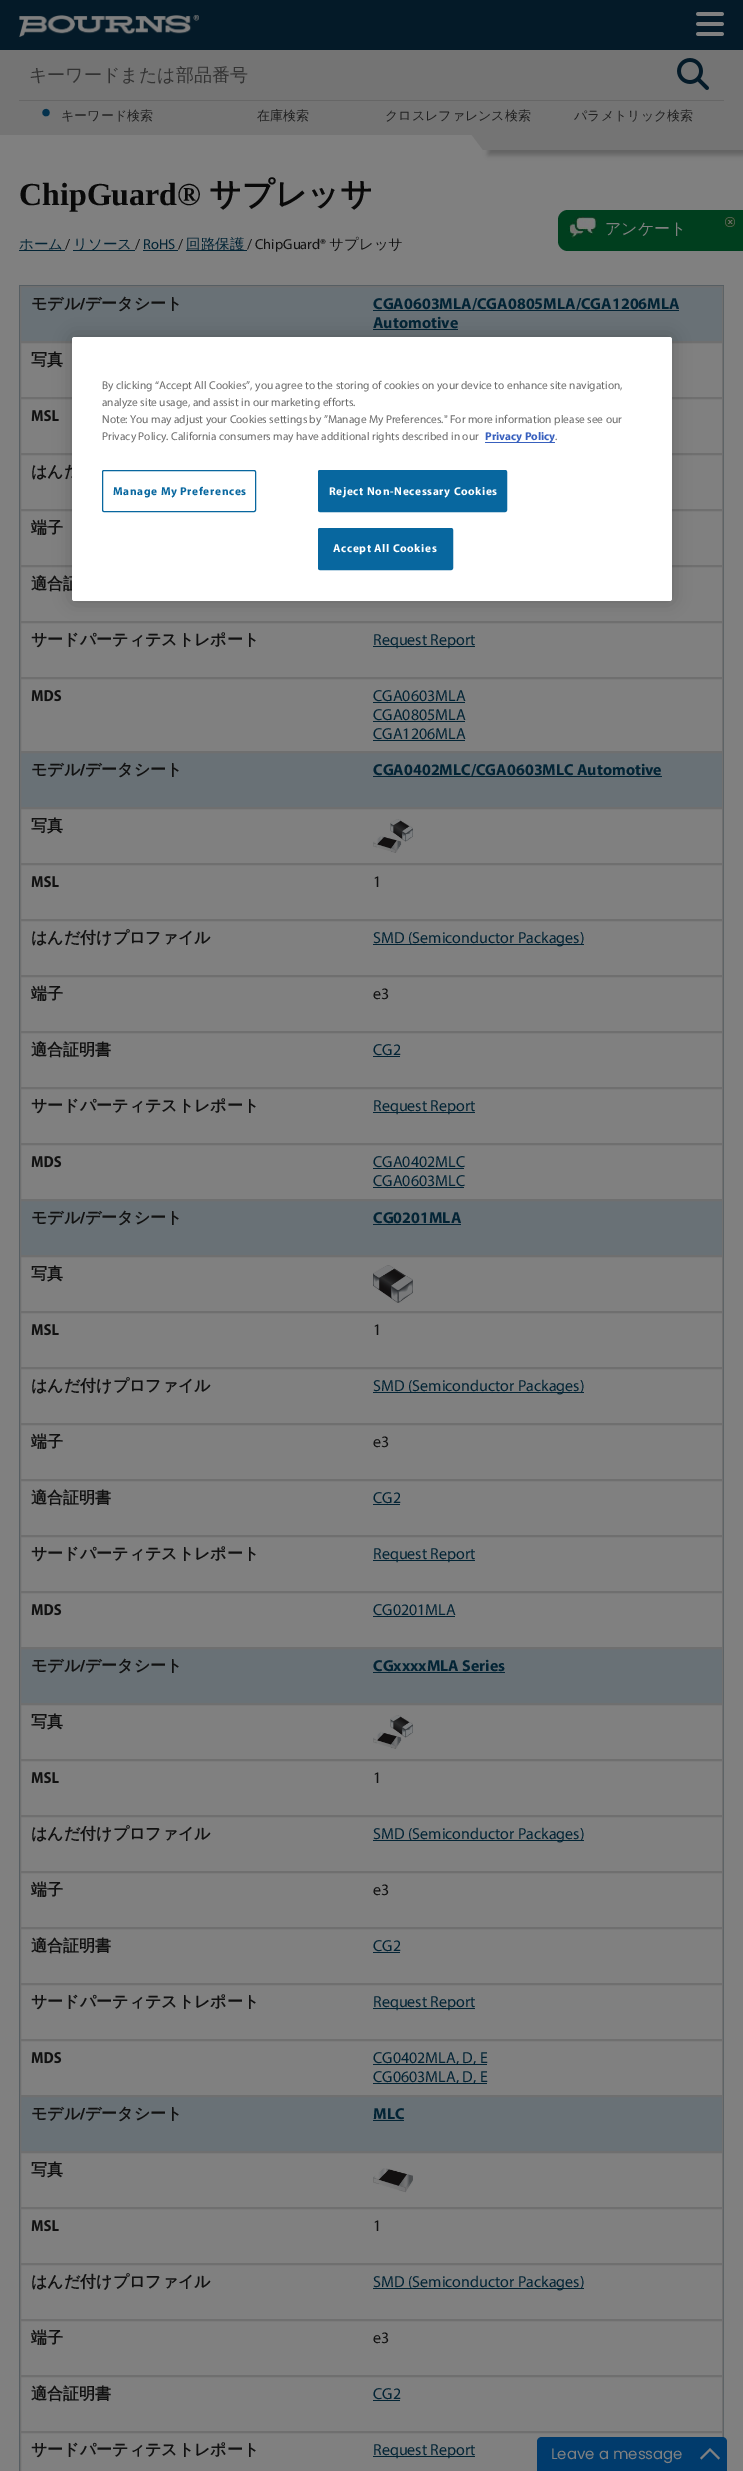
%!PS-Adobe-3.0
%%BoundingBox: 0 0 743 2471
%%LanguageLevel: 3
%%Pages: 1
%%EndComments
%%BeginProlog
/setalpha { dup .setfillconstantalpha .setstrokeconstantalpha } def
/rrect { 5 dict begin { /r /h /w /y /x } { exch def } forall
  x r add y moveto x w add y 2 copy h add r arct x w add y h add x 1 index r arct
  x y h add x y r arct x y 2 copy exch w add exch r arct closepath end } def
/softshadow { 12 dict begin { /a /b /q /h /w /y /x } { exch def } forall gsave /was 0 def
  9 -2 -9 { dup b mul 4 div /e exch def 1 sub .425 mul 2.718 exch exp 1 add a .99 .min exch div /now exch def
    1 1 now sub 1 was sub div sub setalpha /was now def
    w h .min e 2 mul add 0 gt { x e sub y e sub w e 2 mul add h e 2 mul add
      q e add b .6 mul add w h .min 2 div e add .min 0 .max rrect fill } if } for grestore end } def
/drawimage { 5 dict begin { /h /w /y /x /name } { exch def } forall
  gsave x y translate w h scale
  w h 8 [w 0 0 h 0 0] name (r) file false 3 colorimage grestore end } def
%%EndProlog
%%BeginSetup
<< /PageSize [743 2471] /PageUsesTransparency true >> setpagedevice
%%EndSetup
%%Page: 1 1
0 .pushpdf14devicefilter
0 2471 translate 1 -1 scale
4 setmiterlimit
0.502 setgray
0 0 743 2471 rectfill
0.016 0.102 0.157 setrgbcolor
0 0 743 50 rectfill
(images/1.raw) 19 15 180 22 drawimage
(images/2.raw) 696 12 28 24 drawimage
0.455 setgray
0 50 743 85 rectfill
0.4 setgray
19 100 705 1 rectfill
(images/3.raw) 677 58 32 32 drawimage
0 setgray
488 135 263 20 0 2.5 0.24 softshadow
0.455 setgray
newpath 468 130 moveto 743 130 lineto 743 150 lineto 483 150 lineto closepath fill
0.012 0.141 0.208 setrgbcolor
19 250 46 1 rectfill
73 250 62 1 rectfill
143 250 35 1 rectfill
186 250 61 1 rectfill
0.337 0.369 0.388 setrgbcolor
19 285 705 1 rectfill
723 285 1 2153 rectfill
19 285 1 2186 rectfill
0.412 0.443 0.463 setrgbcolor
newpath 20.5 286.5 moveto 722.5 286.5 lineto 722.5 341.5 lineto 20.5 341.5 lineto closepath gsave fill grestore
0.435 setgray
stroke
0.067 setgray
newpath 80 309.5 moveto 83.5 298 lineto 85 298 lineto 81.5 309.5 lineto closepath fill
0.012 0.141 0.208 setrgbcolor
373 310 306 1 rectfill
373 329 85 1 rectfill
0.435 setgray
20.5 342.5 702 55 rectstroke
20.5 398.5 702 55 rectstroke
(images/4.raw) 31 410 28 12 drawimage
20.5 454.5 702 55 rectstroke
20.5 510.5 702 55 rectstroke
20.5 566.5 702 55 rectstroke
20.5 622.5 702 55 rectstroke
0.012 0.141 0.208 setrgbcolor
373 646 102 1 rectfill
0.435 setgray
20.5 678.5 702 73 rectstroke
(images/5.raw) 31 690 31 12 drawimage
0.012 0.141 0.208 setrgbcolor
373 702 92 1 rectfill
373 721 92 1 rectfill
373 740 92 1 rectfill
0.412 0.443 0.463 setrgbcolor
newpath 20.5 752.5 moveto 722.5 752.5 lineto 722.5 807.5 lineto 20.5 807.5 lineto closepath gsave fill grestore
0.435 setgray
stroke
0.067 setgray
newpath 80 775.5 moveto 83.5 764 lineto 85 764 lineto 81.5 775.5 lineto closepath fill
0.012 0.141 0.208 setrgbcolor
373 776 289 1 rectfill
0.435 setgray
20.5 808.5 702 55 rectstroke
(images/6.raw) 373 819 40 34 drawimage
20.5 864.5 702 55 rectstroke
(images/4.raw) 31 876 28 12 drawimage
20.5 920.5 702 55 rectstroke
0.012 0.141 0.208 setrgbcolor
373 944 211 1 rectfill
0.435 setgray
20.5 976.5 702 55 rectstroke
20.5 1032.5 702 55 rectstroke
0.012 0.141 0.208 setrgbcolor
373 1056 27 1 rectfill
0.435 setgray
20.5 1088.5 702 55 rectstroke
0.012 0.141 0.208 setrgbcolor
373 1112 102 1 rectfill
0.435 setgray
20.5 1144.5 702 55 rectstroke
(images/5.raw) 31 1156 31 12 drawimage
0.012 0.141 0.208 setrgbcolor
373 1168 91 1 rectfill
373 1187 91 1 rectfill
0.412 0.443 0.463 setrgbcolor
newpath 20.5 1200.5 moveto 722.5 1200.5 lineto 722.5 1255.5 lineto 20.5 1255.5 lineto closepath gsave fill grestore
0.435 setgray
stroke
0.067 setgray
newpath 80 1223.5 moveto 83.5 1212 lineto 85 1212 lineto 81.5 1223.5 lineto closepath fill
0.012 0.141 0.208 setrgbcolor
373 1224 88 1 rectfill
0.435 setgray
20.5 1256.5 702 55 rectstroke
(images/7.raw) 373 1265 40 38 drawimage
20.5 1312.5 702 55 rectstroke
(images/4.raw) 31 1324 28 12 drawimage
20.5 1368.5 702 55 rectstroke
0.012 0.141 0.208 setrgbcolor
373 1392 211 1 rectfill
0.435 setgray
20.5 1424.5 702 55 rectstroke
20.5 1480.5 702 55 rectstroke
0.012 0.141 0.208 setrgbcolor
373 1504 27 1 rectfill
0.435 setgray
20.5 1536.5 702 55 rectstroke
0.012 0.141 0.208 setrgbcolor
373 1560 102 1 rectfill
0.435 setgray
20.5 1592.5 702 55 rectstroke
(images/5.raw) 31 1604 31 12 drawimage
0.012 0.141 0.208 setrgbcolor
373 1616 82 1 rectfill
0.412 0.443 0.463 setrgbcolor
newpath 20.5 1648.5 moveto 722.5 1648.5 lineto 722.5 1703.5 lineto 20.5 1703.5 lineto closepath gsave fill grestore
0.435 setgray
stroke
0.067 setgray
newpath 80 1671.5 moveto 83.5 1660 lineto 85 1660 lineto 81.5 1671.5 lineto closepath fill
0.012 0.141 0.208 setrgbcolor
373 1672 132 1 rectfill
0.435 setgray
20.5 1704.5 702 55 rectstroke
(images/8.raw) 373 1715 40 34 drawimage
20.5 1760.5 702 55 rectstroke
(images/4.raw) 31 1772 28 12 drawimage
20.5 1816.5 702 55 rectstroke
0.012 0.141 0.208 setrgbcolor
373 1840 211 1 rectfill
0.435 setgray
20.5 1872.5 702 55 rectstroke
20.5 1928.5 702 55 rectstroke
0.012 0.141 0.208 setrgbcolor
373 1952 27 1 rectfill
0.435 setgray
20.5 1984.5 702 55 rectstroke
0.012 0.141 0.208 setrgbcolor
373 2008 102 1 rectfill
0.435 setgray
20.5 2040.5 702 55 rectstroke
(images/5.raw) 31 2052 31 12 drawimage
0.012 0.141 0.208 setrgbcolor
373 2064 114 1 rectfill
373 2083 114 1 rectfill
0.412 0.443 0.463 setrgbcolor
newpath 20.5 2096.5 moveto 722.5 2096.5 lineto 722.5 2151.5 lineto 20.5 2151.5 lineto closepath gsave fill grestore
0.435 setgray
stroke
0.067 setgray
newpath 80 2119.5 moveto 83.5 2108 lineto 85 2108 lineto 81.5 2119.5 lineto closepath fill
0.012 0.141 0.208 setrgbcolor
373 2120 31 1 rectfill
0.435 setgray
20.5 2152.5 702 55 rectstroke
(images/9.raw) 373 2168 40 25 drawimage
20.5 2208.5 702 55 rectstroke
(images/4.raw) 31 2220 28 12 drawimage
20.5 2264.5 702 55 rectstroke
0.012 0.141 0.208 setrgbcolor
373 2288 211 1 rectfill
0.435 setgray
20.5 2320.5 702 55 rectstroke
20.5 2376.5 702 55 rectstroke
0.012 0.141 0.208 setrgbcolor
373 2400 27 1 rectfill
0.435 setgray
20.5 2432.5 702 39 rectstroke
0.012 0.141 0.208 setrgbcolor
373 2456 102 1 rectfill
0 0.243 0.118 setrgbcolor
newpath 568 210 moveto 743 210 lineto 743 251 lineto 568 251 lineto 562.5 251 558 246.5 558 241 curveto 558 220 lineto 558 214.5 562.5 210 568 210 curveto closepath fill
(images/10.raw) 568 216 31 23 drawimage
(images/11.raw) 725 217 10 10 drawimage
0 setgray
72 337 600 264 2.5 9 0.2 softshadow
0.004 0.231 0.424 setrgbcolor
newpath 542 2437 moveto 722 2437 lineto 725 2437 727 2439 727 2442 curveto 727 2471 lineto 537 2471 lineto 537 2442 lineto 537 2439 539 2437 542 2437 curveto closepath fill
0.502 setgray
newpath 710 2448 moveto 720 2458 lineto 718.5 2459.5 lineto 710 2451 lineto 701.5 2459.5 lineto 700 2458 lineto closepath fill
/WenQuanYiZenHei-Medium [18 0 0 -18 0 0] selectfont
0.2 setgray
29 81 moveto (キーワードまたは部品番号) show
/Myriad-Regular [36 0 0 -36 0 0] selectfont
0.016 0.196 0.302 setrgbcolor
41 122 moveto (•) show
/WenQuanYiZenHei-Medium [13 0 0 -13 0 0] selectfont
0.125 setgray
61 120 moveto (キーワード検索) show
257 120 moveto (在庫検索) show
385 120 moveto (クロスレファレンス検索) show
574 120 moveto (パラメトリック検索) show
/LiberationSerif-Bold [32 0 0 -32 0 0] selectfont
0.035 setgray
19 205 moveto (ChipGuard®) show
/WenQuanYiZenHei-Bold [32 0 0 -32 0 0] selectfont
209 205 moveto (サプレッサ) show
/WenQuanYiZenHei-Medium [14.5 0 0 -14.5 0 0] selectfont
0.012 0.141 0.208 setrgbcolor
19 249 moveto (ホーム) show
/Myriad-Regular [14.5 0 0 -14.5 0 0] selectfont
0.067 setgray
65 249 moveto (/) show
/WenQuanYiZenHei-Medium [14.5 0 0 -14.5 0 0] selectfont
0.012 0.141 0.208 setrgbcolor
73 249 moveto (リソース) show
/Myriad-Regular [14.5 0 0 -14.5 0 0] selectfont
0.067 setgray
135 249 moveto (/) show
0.012 0.141 0.208 setrgbcolor
143 249 moveto (RoHS) show
0.067 setgray
178 249 moveto (/) show
/WenQuanYiZenHei-Medium [14.5 0 0 -14.5 0 0] selectfont
0.012 0.141 0.208 setrgbcolor
186 249 moveto (回路保護) show
/Myriad-Regular [14.5 0 0 -14.5 0 0] selectfont
0.067 setgray
247 249 moveto (/ ChipGuard®) show
/WenQuanYiZenHei-Medium [14.5 0 0 -14.5 0 0] selectfont
329 249 moveto (サプレッサ) show
/WenQuanYiZenHei-Bold [16 0 0 -16 0 0] selectfont
31 309 moveto (モデル データシート) show
/Myriad-Bold [16 0 0 -16 0 0] selectfont
0.012 0.141 0.208 setrgbcolor
373 309 moveto (CGA0603MLA/CGA0805MLA/CGA1206MLA) show
373 328 moveto (Automotive) show
/WenQuanYiZenHei-Bold [16 0 0 -16 0 0] selectfont
0.067 setgray
31 365 moveto (写真) show
31 477 moveto (はんだ) show
31 533 moveto (端子) show
31 589 moveto (適合証) show
31 645 moveto (サードパーティテストレポート) show
/Myriad-Regular [16 0 0 -16 0 0] selectfont
0.012 0.141 0.208 setrgbcolor
373 645 moveto (Request Report) show
373 701 moveto (CGA0603MLA) show
373 720 moveto (CGA0805MLA) show
373 739 moveto (CGA1206MLA) show
/WenQuanYiZenHei-Bold [16 0 0 -16 0 0] selectfont
0.067 setgray
31 775 moveto (モデル データシート) show
/Myriad-Bold [16 0 0 -16 0 0] selectfont
0.012 0.141 0.208 setrgbcolor
373 775 moveto (CGA0402MLC/CGA0603MLC Automotive) show
/WenQuanYiZenHei-Bold [16 0 0 -16 0 0] selectfont
0.067 setgray
31 831 moveto (写真) show
/Myriad-Regular [16 0 0 -16 0 0] selectfont
373 887 moveto (1) show
/WenQuanYiZenHei-Bold [16 0 0 -16 0 0] selectfont
31 943 moveto (はんだ付けプロファイル) show
/Myriad-Regular [16 0 0 -16 0 0] selectfont
0.012 0.141 0.208 setrgbcolor
373 943 moveto (SMD \(Semiconductor Packages\)) show
/WenQuanYiZenHei-Bold [16 0 0 -16 0 0] selectfont
0.067 setgray
31 999 moveto (端子) show
/Myriad-Regular [16 0 0 -16 0 0] selectfont
373 999 moveto (e3) show
/WenQuanYiZenHei-Bold [16 0 0 -16 0 0] selectfont
31 1055 moveto (適合証明書) show
/Myriad-Regular [16 0 0 -16 0 0] selectfont
0.012 0.141 0.208 setrgbcolor
373 1055 moveto (CG2) show
/WenQuanYiZenHei-Bold [16 0 0 -16 0 0] selectfont
0.067 setgray
31 1111 moveto (サードパーティテストレポート) show
/Myriad-Regular [16 0 0 -16 0 0] selectfont
0.012 0.141 0.208 setrgbcolor
373 1111 moveto (Request Report) show
373 1167 moveto (CGA0402MLC) show
373 1186 moveto (CGA0603MLC) show
/WenQuanYiZenHei-Bold [16 0 0 -16 0 0] selectfont
0.067 setgray
31 1223 moveto (モデル データシート) show
/Myriad-Bold [16 0 0 -16 0 0] selectfont
0.012 0.141 0.208 setrgbcolor
373 1223 moveto (CG0201MLA) show
/WenQuanYiZenHei-Bold [16 0 0 -16 0 0] selectfont
0.067 setgray
31 1279 moveto (写真) show
/Myriad-Regular [16 0 0 -16 0 0] selectfont
373 1335 moveto (1) show
/WenQuanYiZenHei-Bold [16 0 0 -16 0 0] selectfont
31 1391 moveto (はんだ付けプロファイル) show
/Myriad-Regular [16 0 0 -16 0 0] selectfont
0.012 0.141 0.208 setrgbcolor
373 1391 moveto (SMD \(Semiconductor Packages\)) show
/WenQuanYiZenHei-Bold [16 0 0 -16 0 0] selectfont
0.067 setgray
31 1447 moveto (端子) show
/Myriad-Regular [16 0 0 -16 0 0] selectfont
373 1447 moveto (e3) show
/WenQuanYiZenHei-Bold [16 0 0 -16 0 0] selectfont
31 1503 moveto (適合証明書) show
/Myriad-Regular [16 0 0 -16 0 0] selectfont
0.012 0.141 0.208 setrgbcolor
373 1503 moveto (CG2) show
/WenQuanYiZenHei-Bold [16 0 0 -16 0 0] selectfont
0.067 setgray
31 1559 moveto (サードパーティテストレポート) show
/Myriad-Regular [16 0 0 -16 0 0] selectfont
0.012 0.141 0.208 setrgbcolor
373 1559 moveto (Request Report) show
373 1615 moveto (CG0201MLA) show
/WenQuanYiZenHei-Bold [16 0 0 -16 0 0] selectfont
0.067 setgray
31 1671 moveto (モデル データシート) show
/Myriad-Bold [16 0 0 -16 0 0] selectfont
0.012 0.141 0.208 setrgbcolor
373 1671 moveto (CGxxxxMLA Series) show
/WenQuanYiZenHei-Bold [16 0 0 -16 0 0] selectfont
0.067 setgray
31 1727 moveto (写真) show
/Myriad-Regular [16 0 0 -16 0 0] selectfont
373 1783 moveto (1) show
/WenQuanYiZenHei-Bold [16 0 0 -16 0 0] selectfont
31 1839 moveto (はんだ付けプロファイル) show
/Myriad-Regular [16 0 0 -16 0 0] selectfont
0.012 0.141 0.208 setrgbcolor
373 1839 moveto (SMD \(Semiconductor Packages\)) show
/WenQuanYiZenHei-Bold [16 0 0 -16 0 0] selectfont
0.067 setgray
31 1895 moveto (端子) show
/Myriad-Regular [16 0 0 -16 0 0] selectfont
373 1895 moveto (e3) show
/WenQuanYiZenHei-Bold [16 0 0 -16 0 0] selectfont
31 1951 moveto (適合証明書) show
/Myriad-Regular [16 0 0 -16 0 0] selectfont
0.012 0.141 0.208 setrgbcolor
373 1951 moveto (CG2) show
/WenQuanYiZenHei-Bold [16 0 0 -16 0 0] selectfont
0.067 setgray
31 2007 moveto (サードパーティテストレポート) show
/Myriad-Regular [16 0 0 -16 0 0] selectfont
0.012 0.141 0.208 setrgbcolor
373 2007 moveto (Request Report) show
373 2063 moveto (CG0402MLA, D, E) show
373 2082 moveto (CG0603MLA, D, E) show
/WenQuanYiZenHei-Bold [16 0 0 -16 0 0] selectfont
0.067 setgray
31 2119 moveto (モデル データシート) show
/Myriad-Bold [16 0 0 -16 0 0] selectfont
0.012 0.141 0.208 setrgbcolor
373 2119 moveto (MLC) show
/WenQuanYiZenHei-Bold [16 0 0 -16 0 0] selectfont
0.067 setgray
31 2175 moveto (写真) show
/Myriad-Regular [16 0 0 -16 0 0] selectfont
373 2231 moveto (1) show
/WenQuanYiZenHei-Bold [16 0 0 -16 0 0] selectfont
31 2287 moveto (はんだ付けプロファイル) show
/Myriad-Regular [16 0 0 -16 0 0] selectfont
0.012 0.141 0.208 setrgbcolor
373 2287 moveto (SMD \(Semiconductor Packages\)) show
/WenQuanYiZenHei-Bold [16 0 0 -16 0 0] selectfont
0.067 setgray
31 2343 moveto (端子) show
/Myriad-Regular [16 0 0 -16 0 0] selectfont
373 2343 moveto (e3) show
/WenQuanYiZenHei-Bold [16 0 0 -16 0 0] selectfont
31 2399 moveto (適合証明書) show
/Myriad-Regular [16 0 0 -16 0 0] selectfont
0.012 0.141 0.208 setrgbcolor
373 2399 moveto (CG2) show
/WenQuanYiZenHei-Bold [16 0 0 -16 0 0] selectfont
0.067 setgray
31 2455 moveto (サードパーティテストレポート) show
/Myriad-Regular [16 0 0 -16 0 0] selectfont
0.012 0.141 0.208 setrgbcolor
373 2455 moveto (Request Report) show
/WenQuanYiZenHei-Medium [16 0 0 -16 0 0] selectfont
0.502 setgray
605 234 moveto (アンケート) show
1 setgray
72 337 600 264 2.5 rrect fill
/Myriad-Regular [11.4 0 0 -11.4 0 0] selectfont
0.412 setgray
102 389 moveto (By clicking “Accept All Cookies”, you agree to the storing of cookies on your device to enhance site navigation,) show
102 406 moveto (analyze site usage, and assist in our marketing efforts.) show
102 423 moveto (Note: You may adjust your Cookies settings by ”Manage My Preferences." For more information please see our) show
102 440 moveto (Privacy Policy. California consumers may have additional rights described in our) show
0.22 0.376 0.745 setrgbcolor
485 442 70 1 rectfill
/Myriad-Bold [11.4 0 0 -11.4 0 0] selectfont
485 440 moveto (Privacy Policy) show
/Myriad-Regular [11.4 0 0 -11.4 0 0] selectfont
0.412 setgray
555 440 moveto (.) show
0.031 0.404 0.624 setrgbcolor
102.5 470.5 153 41 1.5 rrect stroke
/Myriad-Bold [11.4 0 0 -11.4 0 0] selectfont
113 495 moveto 0.6 0 (Manage My Preferences) ashow
318.5 470.5 188 41 1.5 rrect gsave fill grestore
stroke
1 setgray
329 495 moveto 0.6 0 (Reject Non-Necessary Cookies) ashow
0.031 0.404 0.624 setrgbcolor
318.5 528.5 134 41 1.5 rrect gsave fill grestore
stroke
1 setgray
333 552 moveto 0.6 0 (Accept All Cookies) ashow
/Poppins-Regular [15 0 0 -15 0 0] selectfont
0.502 setgray
551 2459 moveto (Leave a message) show
.poppdf14devicefilter showpage
%%EOF
